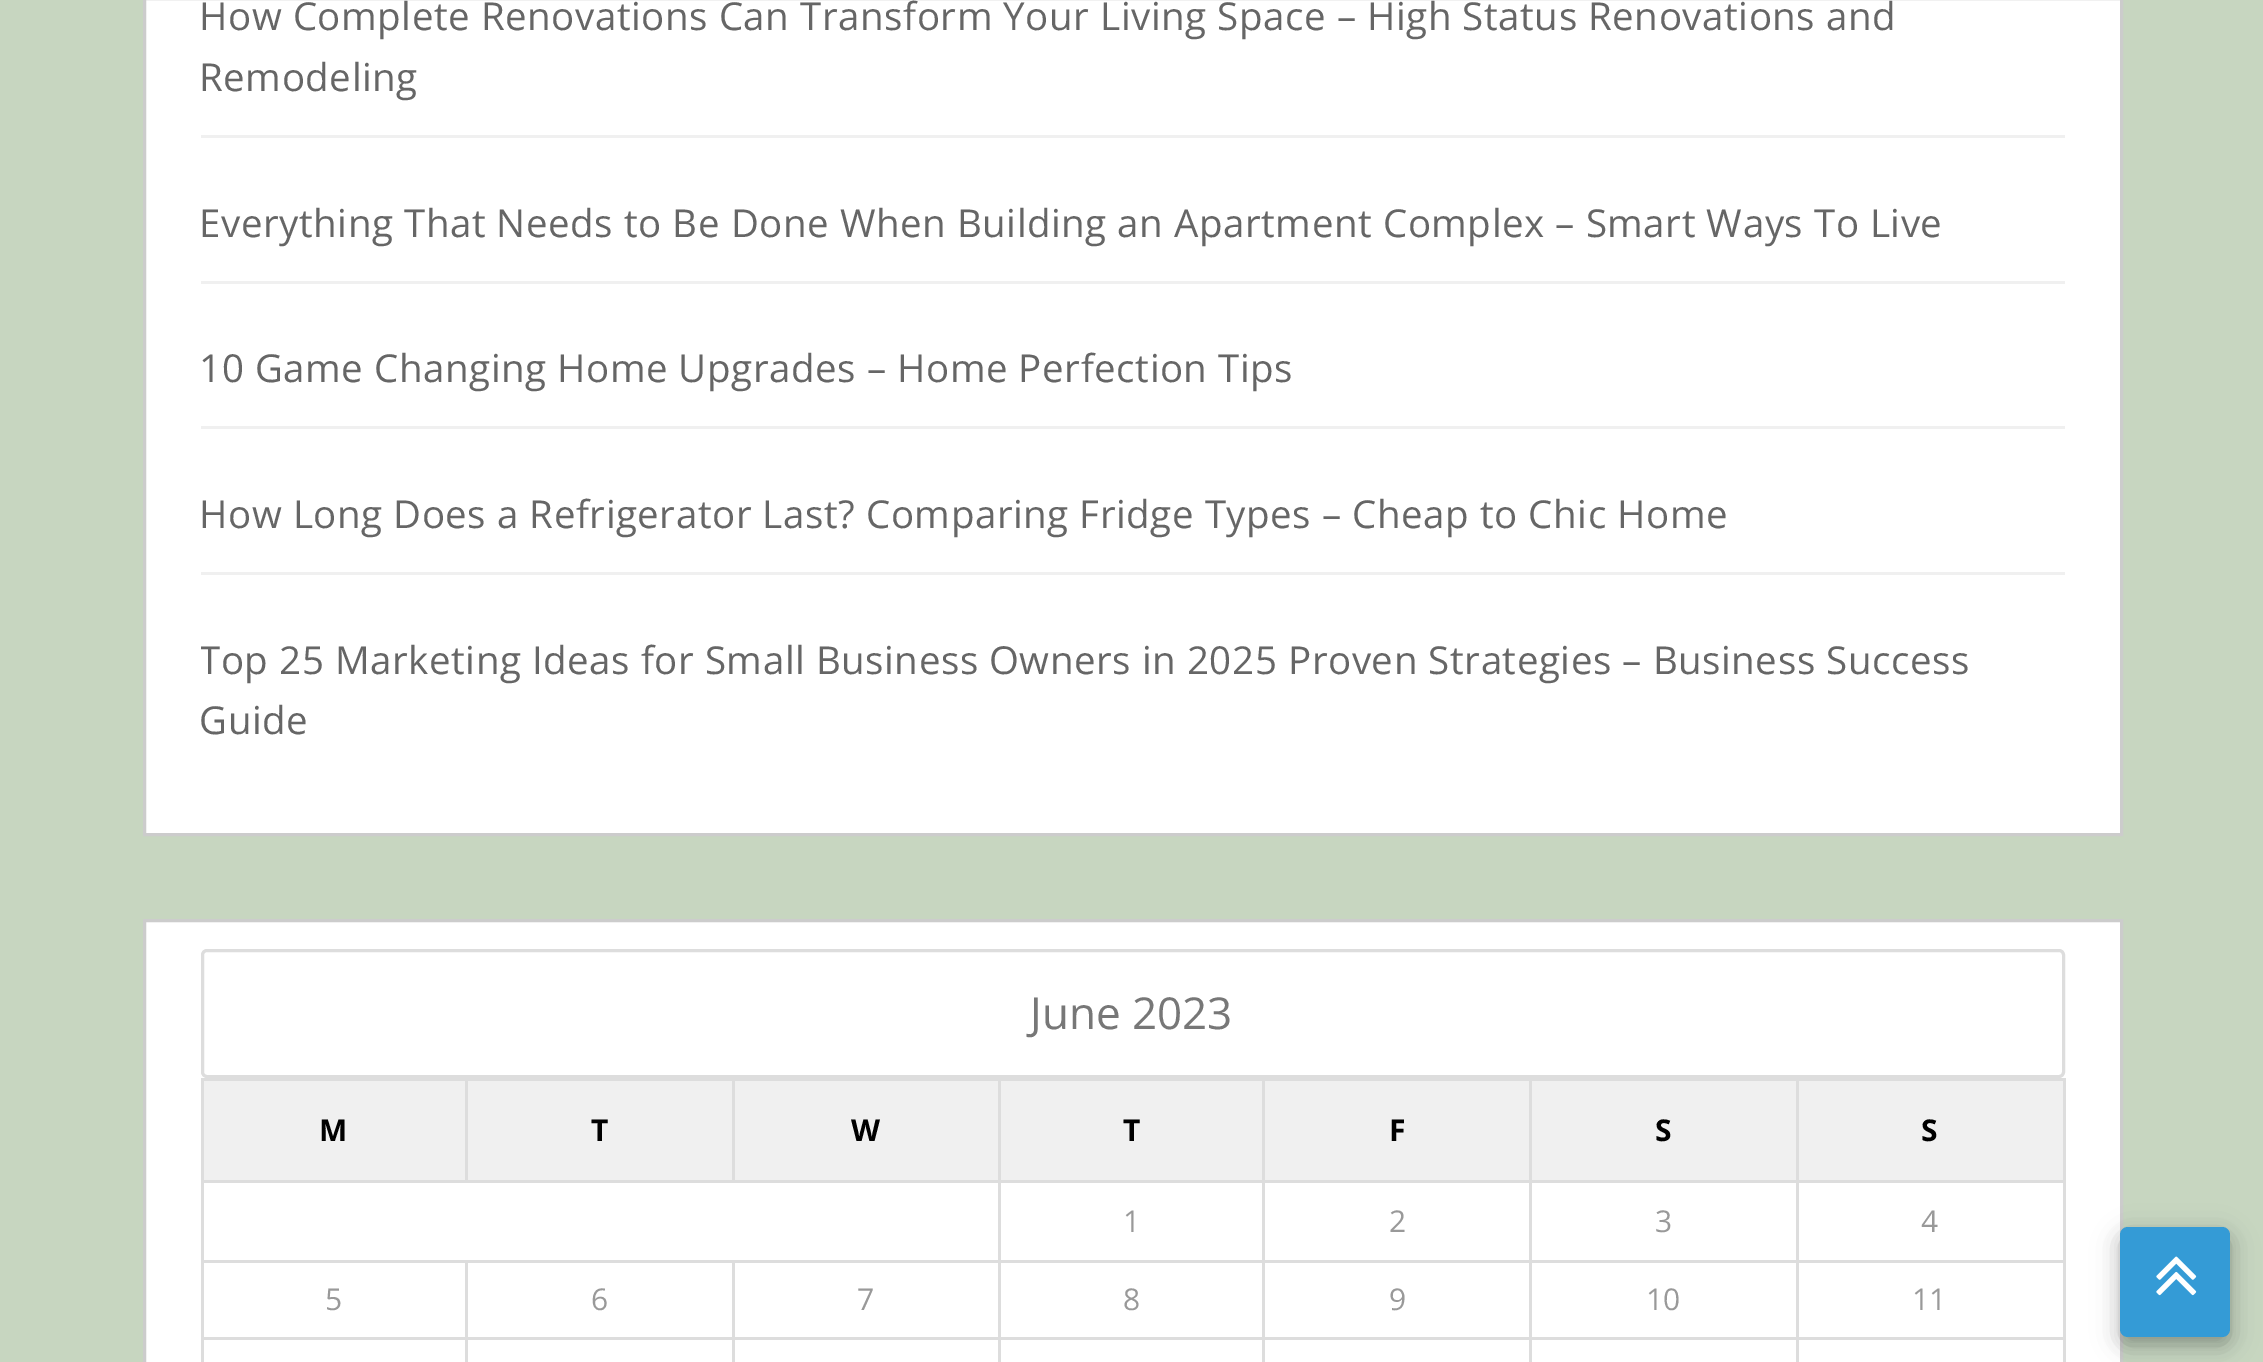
%!PS-Adobe-3.0
%%BoundingBox: 0 0 2263 1362
%%LanguageLevel: 3
%%Pages: 1
%%EndComments
%%BeginProlog
/setalpha { dup .setfillconstantalpha .setstrokeconstantalpha } def
/rrect { 5 dict begin { /r /h /w /y /x } { exch def } forall
  x r add y moveto x w add y 2 copy h add r arct x w add y h add x 1 index r arct
  x y h add x y r arct x y 2 copy exch w add exch r arct closepath end } def
/softshadow { 12 dict begin { /a /b /q /h /w /y /x } { exch def } forall gsave /was 0 def
  9 -2 -9 { dup b mul 4 div /e exch def 1 sub .425 mul 2.718 exch exp 1 add a .99 .min exch div /now exch def
    1 1 now sub 1 was sub div sub setalpha /was now def
    w h .min e 2 mul add 0 gt { x e sub y e sub w e 2 mul add h e 2 mul add
      q e add b .6 mul add w h .min 2 div e add .min 0 .max rrect fill } if } for grestore end } def
/drawimage { 5 dict begin { /h /w /y /x /name } { exch def } forall
  gsave x y translate w h scale
  w h 8 [w 0 0 h 0 0] name (r) file false 3 colorimage grestore end } def
%%EndProlog
%%BeginSetup
<< /PageSize [2263 1362] /PageUsesTransparency true >> setpagedevice
%%EndSetup
%%Page: 1 1
0 .pushpdf14devicefilter
0 1362 translate 1 -1 scale
4 setmiterlimit
0.78 0.839 0.753 setrgbcolor
0 0 2263 1362 rectfill
1 setgray
newpath 144.5 -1.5 moveto 2121.5 -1.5 lineto 2121.5 834.5 lineto 144.5 834.5 lineto closepath gsave fill grestore
0.8 setgray
3 setlinewidth
stroke
0.941 setgray
201 135 1864 3 rectfill
201 281 1864 3 rectfill
201 426 1864 3 rectfill
201 572 1864 3 rectfill
1 setgray
newpath 144.5 920.5 moveto 2121.5 920.5 lineto 2121.5 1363.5 lineto 144.5 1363.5 lineto closepath gsave fill grestore
0.8 setgray
stroke
0.867 setgray
202.5 950.5 1861 126 4.5 rrect stroke
0.941 setgray
204 1081 261 99 rectfill
0.867 setgray
1796 1078 269 3 rectfill
1796 1180 269 3 rectfill
1796 1260 269 3 rectfill
1796 1337 269 3 rectfill
1796 1337 3 25 rectfill
1529 1337 270 3 rectfill
1796 1260 3 79 rectfill
1529 1260 270 3 rectfill
1796 1180 3 82 rectfill
1529 1180 270 3 rectfill
1796 1078 3 105 rectfill
1529 1078 270 3 rectfill
1529 1337 3 25 rectfill
1262 1337 270 3 rectfill
1529 1260 3 79 rectfill
1262 1260 270 3 rectfill
1529 1180 3 82 rectfill
1262 1180 270 3 rectfill
1529 1078 3 105 rectfill
1262 1078 270 3 rectfill
1262 1337 3 25 rectfill
998 1337 267 3 rectfill
1262 1260 3 79 rectfill
998 1260 267 3 rectfill
1262 1180 3 82 rectfill
998 1180 267 3 rectfill
1262 1078 3 105 rectfill
998 1078 267 3 rectfill
998 1337 3 25 rectfill
732 1337 269 3 rectfill
998 1260 3 79 rectfill
732 1260 269 3 rectfill
998 1180 3 82 rectfill
201 1180 800 3 rectfill
998 1078 3 105 rectfill
732 1078 269 3 rectfill
732 1078 3 105 rectfill
465 1078 269 3 rectfill
465 1078 3 105 rectfill
201 1078 267 3 rectfill
732 1337 3 25 rectfill
465 1337 269 3 rectfill
732 1260 3 79 rectfill
465 1260 269 3 rectfill
465 1337 3 25 rectfill
201 1337 267 3 rectfill
465 1260 3 79 rectfill
201 1260 267 3 rectfill
201 1337 3 25 rectfill
201 1260 3 79 rectfill
201 1180 3 82 rectfill
201 1078 3 105 rectfill
0.941 setgray
468 1081 264 99 rectfill
735 1081 263 99 rectfill
1001 1081 261 99 rectfill
1265 1081 264 99 rectfill
1532 1081 264 99 rectfill
1799 1081 264 99 rectfill
0.867 setgray
2063 1337 3 25 rectfill
2063 1260 3 79 rectfill
2063 1180 3 82 rectfill
2063 1078 3 105 rectfill
0 setgray
2120 1235 110 110 8 8 0.16 softshadow
2120 1235 110 110 8 14 0.18 softshadow
0.204 0.608 0.839 setrgbcolor
2120 1227 110 110 8 rrect fill
(images/1.raw) 2156 1256 41 40 drawimage
/OpenSans-Regular [38.5 0 0 -38.5 0 0] selectfont
0.4 setgray
199 30 moveto 0.55 0 (How Complete Renovations Can Transform Your Living Space – High Status Renovations and) ashow
199 91 moveto 0.55 0 (Remodeling) ashow
199 237 moveto 0.55 0 (Everything That Needs to Be Done When Building an Apartment Complex – Smart Ways To Live) ashow
199 382 moveto 0.55 0 (10 Game Changing Home Upgrades – Home Perfection Tips) ashow
199 528 moveto 0.55 0 (How Long Does a Refrigerator Last? Comparing Fridge Types – Cheap to Chic Home) ashow
gsave
201 602 1864 176 rectclip
199 674 moveto 0.55 0 (Top 25 Marketing Ideas for Small Business Owners in 2025) ashow
grestore
1288 674 moveto 0.55 0 (Proven Strategies – Business Success) ashow
199 734 moveto 0.55 0 (Guide) ashow
/OpenSans-Regular [44 0 0 -44 0 0] selectfont
0.467 setgray
1030 1029 moveto (June 2023) show
/OpenSans-Bold [30 0 0 -30 0 0] selectfont
0 setgray
319 1141 moveto (M) show
591 1141 moveto (T) show
851 1141 moveto (W) show
1123 1141 moveto (T) show
1389 1141 moveto (F) show
1655 1141 moveto (S) show
1921 1141 moveto (S) show
/OpenSans-Regular [30 0 0 -30 0 0] selectfont
0.6 setgray
1123 1232 moveto (1) show
1389 1232 moveto (2) show
1655 1232 moveto (3) show
1921 1232 moveto (4) show
325 1310 moveto (5) show
591 1310 moveto (6) show
857 1310 moveto (7) show
1123 1310 moveto (8) show
1389 1310 moveto (9) show
1646 1310 moveto (10) show
1912 1310 moveto (11) show
.poppdf14devicefilter showpage
%%EOF
